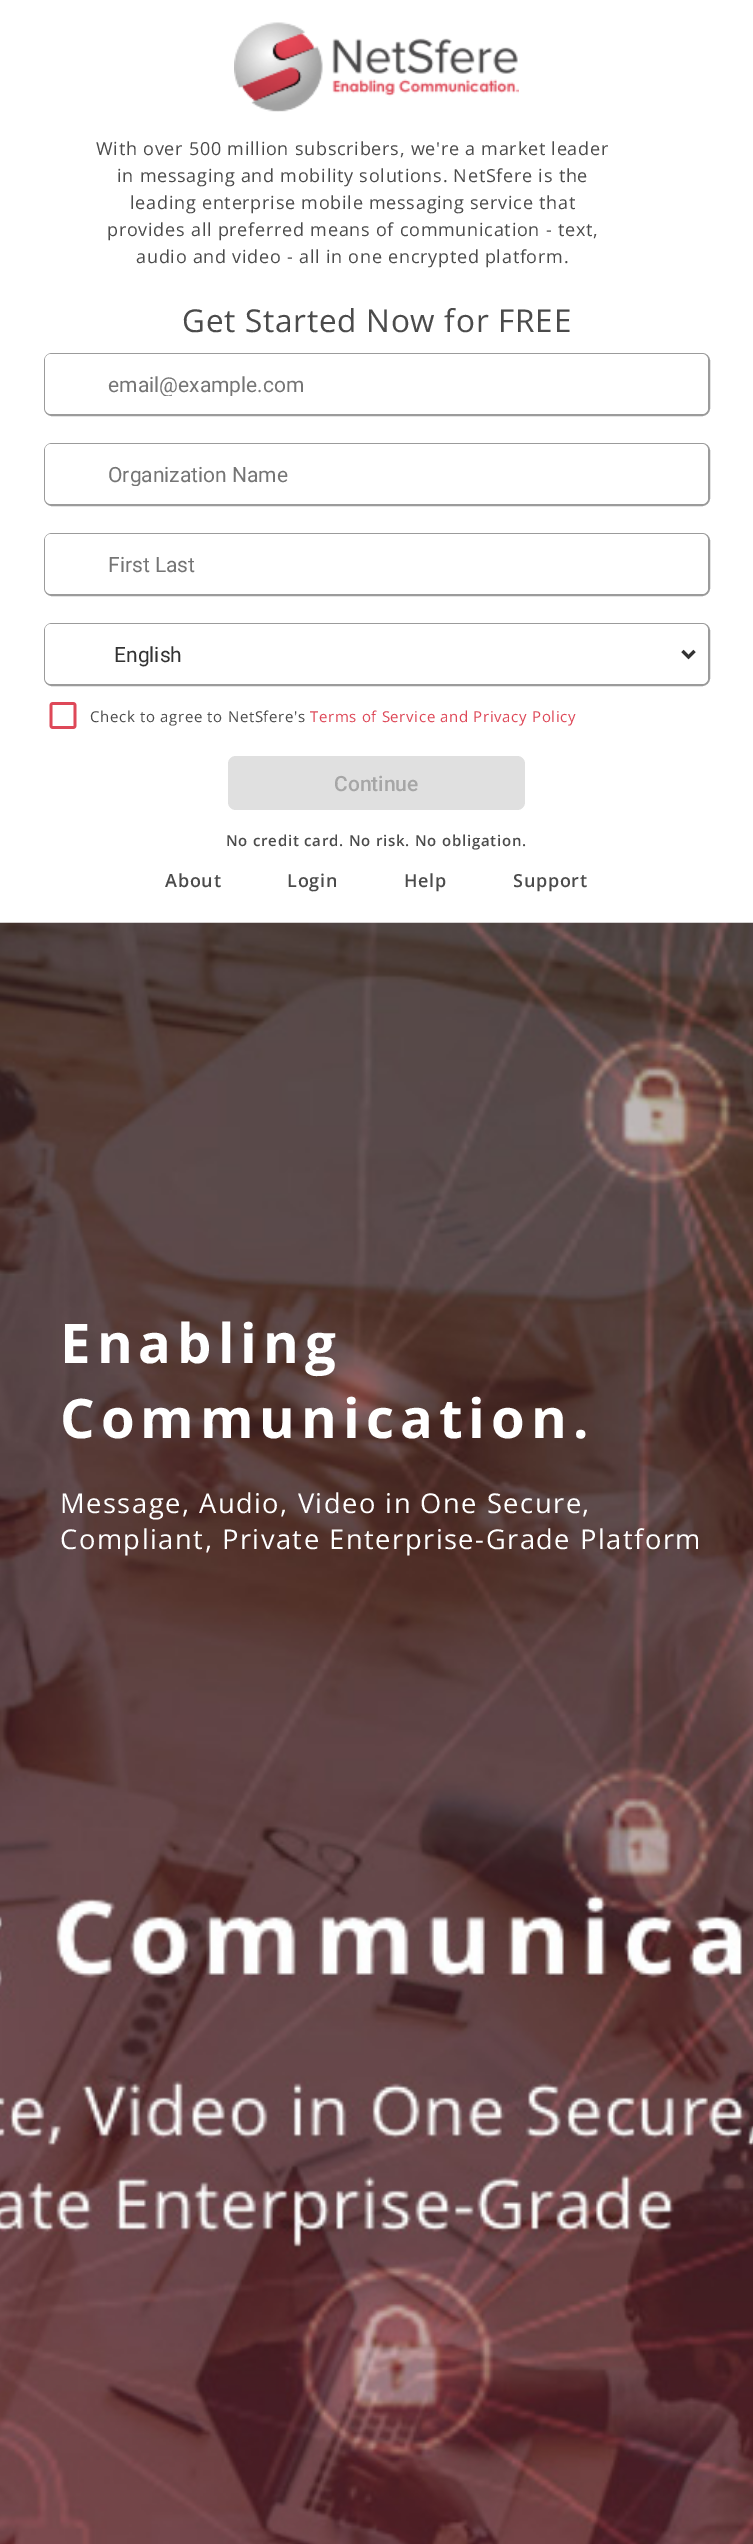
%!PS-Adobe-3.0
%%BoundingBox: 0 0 753 2544
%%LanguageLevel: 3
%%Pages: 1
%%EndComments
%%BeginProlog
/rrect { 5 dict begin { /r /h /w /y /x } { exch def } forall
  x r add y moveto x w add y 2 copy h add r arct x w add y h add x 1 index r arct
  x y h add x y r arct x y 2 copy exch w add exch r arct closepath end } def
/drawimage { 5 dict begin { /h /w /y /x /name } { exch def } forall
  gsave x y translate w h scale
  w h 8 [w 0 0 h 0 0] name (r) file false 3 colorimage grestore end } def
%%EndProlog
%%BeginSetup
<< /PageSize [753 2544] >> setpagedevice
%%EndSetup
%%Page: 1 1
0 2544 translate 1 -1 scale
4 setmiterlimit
1 setgray
0 0 753 2544 rectfill
(images/1.raw) 234 22 285 90 drawimage
0.608 setgray
2 setlinewidth
45 354 664 61 7 rrect stroke
1 setgray
45 354 663 60 6 rrect fill
0.608 setgray
45 444 664 61 7 rrect stroke
1 setgray
45 444 663 60 6 rrect fill
0.608 setgray
45 534 664 61 7 rrect stroke
1 setgray
45 534 663 60 6 rrect fill
0.608 setgray
45 624 664 61 7 rrect stroke
1 setgray
45 624 663 60 6 rrect fill
0.2 setgray
3 setlinewidth
newpath 682.5 651 moveto 688.5 657 lineto 694.5 651 lineto stroke
(images/2.raw) 49 702 28 27 drawimage
0.878 setgray
228 756 297 54 8 rrect fill
(images/3.raw) 0 922 753 1622 drawimage
/OpenSans-Regular [18 0 0 -18 0 0] selectfont
0.294 setgray
96 155 moveto 0.75 0 (With over 500 million subscribers, we're a market leader) ashow
117 182 moveto 0.75 0 (in messaging and mobility solutions. NetSfere is the) ashow
130 209 moveto 0.75 0 (leading enterprise mobile messaging service that) ashow
107 236 moveto 0.75 0 (provides all preferred means of communication - text,) ashow
136 263 moveto 0.75 0 (audio and video - all in one encrypted platform.) ashow
/OpenSans-Regular [31.5 0 0 -31.5 0 0] selectfont
182 332 moveto 0.75 0 (Get Started Now for FREE) ashow
gsave
108 372 576 24 rectclip
/Roboto-Regular [21 0 0 -21 0 0] selectfont
0.459 setgray
108 392 moveto (email@example.com) show
grestore
gsave
108 462 576 24 rectclip
/Roboto-Regular [21 0 0 -21 0 0] selectfont
0.459 setgray
108 482 moveto (Organization Name) show
grestore
/Roboto-Regular [21 0 0 -21 0 0] selectfont
0.459 setgray
108 572 moveto (First Last) show
0.2 setgray
114 662 moveto (English) show
/OpenSans-Regular [15 0 0 -15 0 0] selectfont
0.294 setgray
90 722 moveto 0.65 0 (Check to agree to NetSfere's) ashow
0.871 0.282 0.345 setrgbcolor
310 722 moveto 0.65 0 (Terms of Service and Privacy Policy) ashow
/Roboto-Medium [21 0 0 -21 0 0] selectfont
0.651 setgray
334 791 moveto (Continue) show
/OpenSans-SemiBold [15 0 0 -15 0 0] selectfont
0.294 setgray
226 846 moveto 0.75 0 (No credit card. No risk. No obligation.) ashow
/OpenSans-SemiBold [18 0 0 -18 0 0] selectfont
165 887 moveto 0.75 0 (About) ashow
287 887 moveto 0.75 0 (Login) ashow
404 887 moveto 0.75 0 (Help) ashow
513 887 moveto 0.75 0 (Support) ashow
/OpenSans-Bold [54.5 0 0 -54.5 0 0] selectfont
1 setgray
60 1363 moveto 6 0 (Enabling) ashow
60 1438 moveto 6 0 (Communication.) ashow
/OpenSans-Regular [27.3 0 0 -27.3 0 0] selectfont
60 1513 moveto 1.5 0 (Message, Audio, Video in One Secure,) ashow
60 1549 moveto 1.5 0 (Compliant, Private Enterprise-Grade Platform) ashow
showpage
%%EOF
